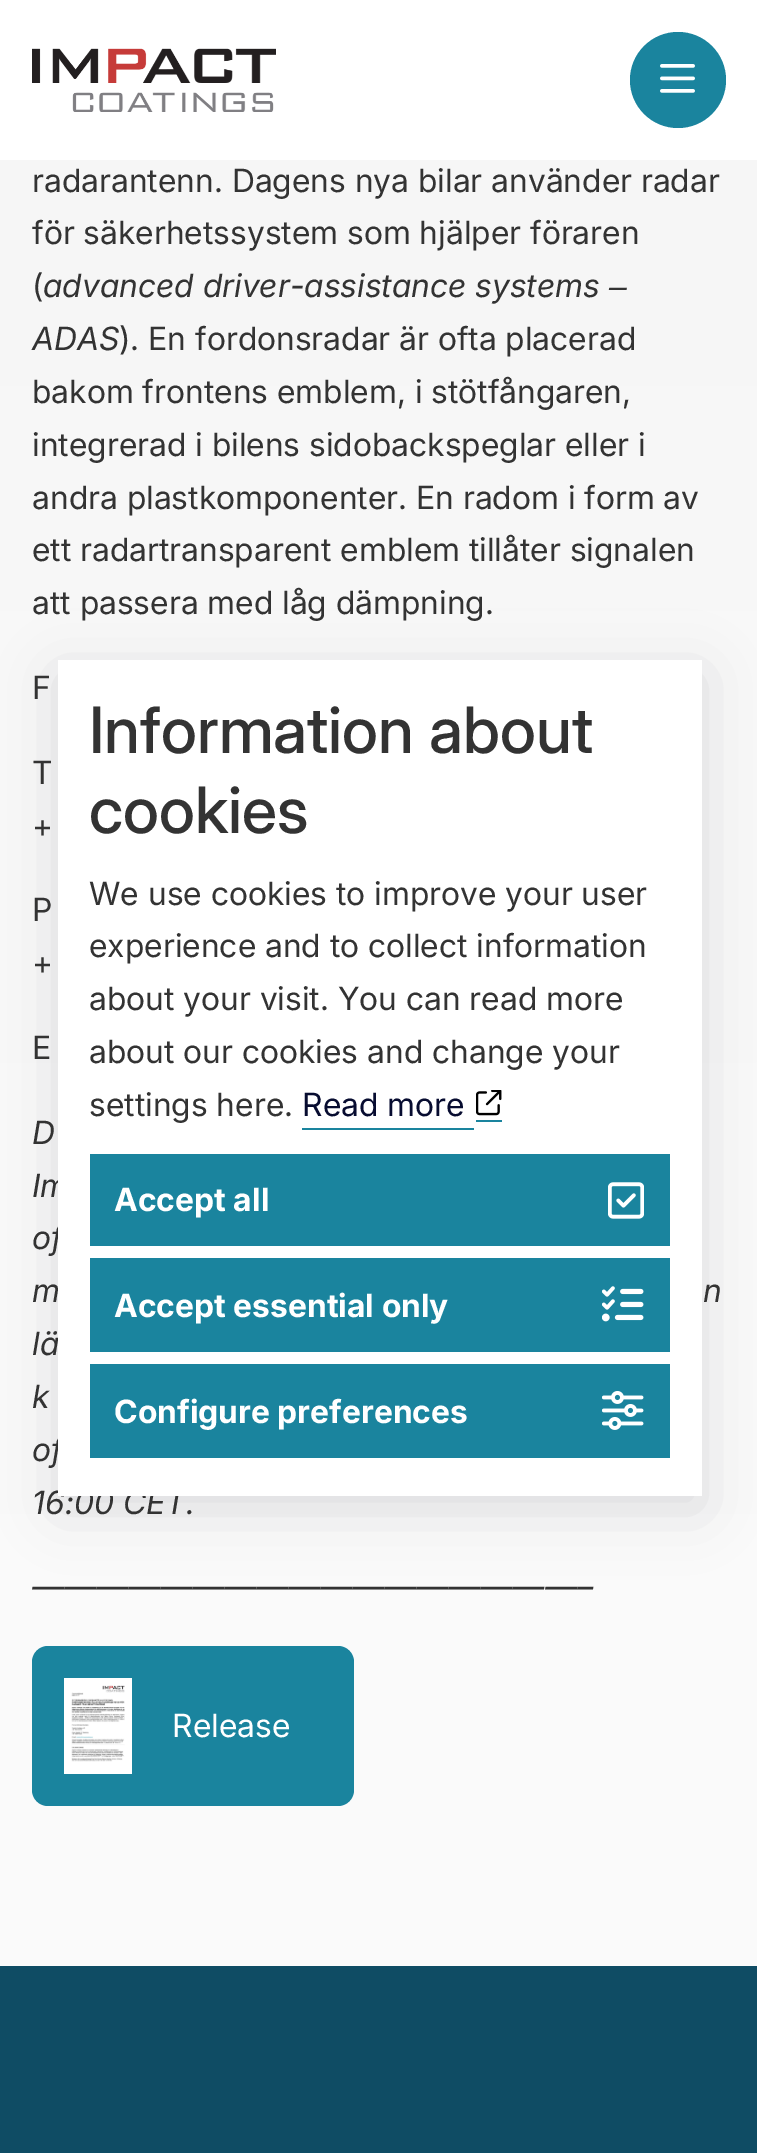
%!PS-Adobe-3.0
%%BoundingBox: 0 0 757 2153
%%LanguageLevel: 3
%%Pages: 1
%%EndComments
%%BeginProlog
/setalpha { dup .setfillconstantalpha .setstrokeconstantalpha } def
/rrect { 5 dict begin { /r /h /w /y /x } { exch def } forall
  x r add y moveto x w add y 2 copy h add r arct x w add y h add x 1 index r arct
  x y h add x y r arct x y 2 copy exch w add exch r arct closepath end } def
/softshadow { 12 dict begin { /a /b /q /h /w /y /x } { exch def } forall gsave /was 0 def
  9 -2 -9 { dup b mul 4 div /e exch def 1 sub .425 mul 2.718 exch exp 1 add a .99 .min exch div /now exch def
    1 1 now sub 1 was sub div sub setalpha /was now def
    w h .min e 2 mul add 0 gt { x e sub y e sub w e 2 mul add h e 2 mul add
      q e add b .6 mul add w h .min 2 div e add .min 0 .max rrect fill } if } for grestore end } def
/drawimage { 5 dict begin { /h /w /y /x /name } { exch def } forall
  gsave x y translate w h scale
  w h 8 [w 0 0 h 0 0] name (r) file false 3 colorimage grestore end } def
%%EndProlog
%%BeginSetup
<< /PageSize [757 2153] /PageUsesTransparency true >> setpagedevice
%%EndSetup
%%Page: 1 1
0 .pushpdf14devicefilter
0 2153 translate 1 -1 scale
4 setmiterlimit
1 setgray
0 0 757 2153 rectfill
gsave newpath 0 160 moveto 757 160 lineto 757 1966 lineto 0 1966 lineto closepath clip newpath
<< /ShadingType 2 /ColorSpace /DeviceRGB /Coords [379 -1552 379 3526] /Extend [true true] /Function << /FunctionType 2 /Domain [0 1] /C0 [0.949 0.949 0.949] /C1 [1 1 1] /N 1 >> >> shfill grestore
(images/1.raw) 32 48 244 64 drawimage
0.102 0.518 0.62 setrgbcolor
newpath 678 80 48 0 360 arc closepath fill
(images/2.raw) 660 64 35 29 drawimage
32 1646 322 160 16 rrect fill
(images/3.raw) 64 1678 68 96 drawimage
0.392 0.392 0.435 setrgbcolor
58 674 644 836 0 29 0.2 softshadow
0.059 0.298 0.392 setrgbcolor
0 1966 757 187 rectfill
/Inter-Regular [32 0 0 -32 0 0] selectfont
0.2 setgray
32 192 moveto (radarantenn. Dagens nya bilar använder radar) show
32 244 moveto (för säkerhetssystem som hjälper föraren) show
32 297 moveto (\() show
/Inter-Italic [32 0 0 -32 0 0] selectfont
43 297 moveto (advanced driver-assistance systems) show
/LiberationSans-Italic [32 0 0 -32 0 0] selectfont
609 297 moveto (‒) show
/Inter-Italic [32 0 0 -32 0 0] selectfont
32 350 moveto (ADAS) show
/Inter-Regular [32 0 0 -32 0 0] selectfont
119 350 moveto (\). En fordonsradar är ofta placerad) show
32 403 moveto (bakom frontens emblem, i stötfångaren,) show
32 456 moveto (integrerad i bilens sidobackspeglar eller i) show
32 509 moveto (andra plastkomponenter. En radom i form av) show
32 561 moveto (ett radartransparent emblem tillåter signalen) show
32 614 moveto (att passera med låg dämpning.) show
32 699 moveto (F) show
32 784 moveto (T) show
32 837 moveto (+) show
32 921 moveto (P) show
32 974 moveto (+) show
32 1059 moveto (E) show
/Inter-Italic [32 0 0 -32 0 0] selectfont
32 1144 moveto (D) show
32 1197 moveto (Im) show
32 1249 moveto (of) show
32 1302 moveto (m) show
703 1302 moveto (n) show
32 1355 moveto (lä) show
32 1408 moveto (k) show
32 1461 moveto (of) show
32 1514 moveto (16:00 CET.) show
32 1598 moveto (—————————————————–) show
/Inter-Regular [32 0 0 -32 0 0] selectfont
1 setgray
172 1737 moveto (Release) show
58 660 644 836 rectfill
/Inter-Medium [64 0 0 -64 0 0] selectfont
0.2 setgray
89 753 moveto (Information about) show
89 833 moveto (cookies) show
/Inter-Regular [32 0 0 -32 0 0] selectfont
89 905 moveto (We use cookies to improve your user) show
89 957 moveto (experience and to collect information) show
89 1010 moveto (about your visit. You can read more) show
89 1063 moveto (about our cookies and change your) show
89 1116 moveto (settings here.) show
0.027 0.047 0.188 setrgbcolor
302 1116 moveto (Read more) show
0.102 0.518 0.62 setrgbcolor
302 1128 172 2 rectfill
476 1120 26 2 rectfill
(images/4.raw) 476 1090 26 26 drawimage
90 1154 580 92 rectfill
/Inter-Bold [32 0 0 -32 0 0] selectfont
1 setgray
114 1211 moveto (Accept all) show
(images/5.raw) 608 1182 36 37 drawimage
0.102 0.518 0.62 setrgbcolor
90 1258 580 94 rectfill
1 setgray
114 1317 moveto (Accept essential only) show
(images/6.raw) 602 1286 42 36 drawimage
0.102 0.518 0.62 setrgbcolor
90 1364 580 94 rectfill
1 setgray
114 1423 moveto (Configure preferences) show
(images/7.raw) 602 1391 42 39 drawimage
.poppdf14devicefilter showpage
%%EOF
